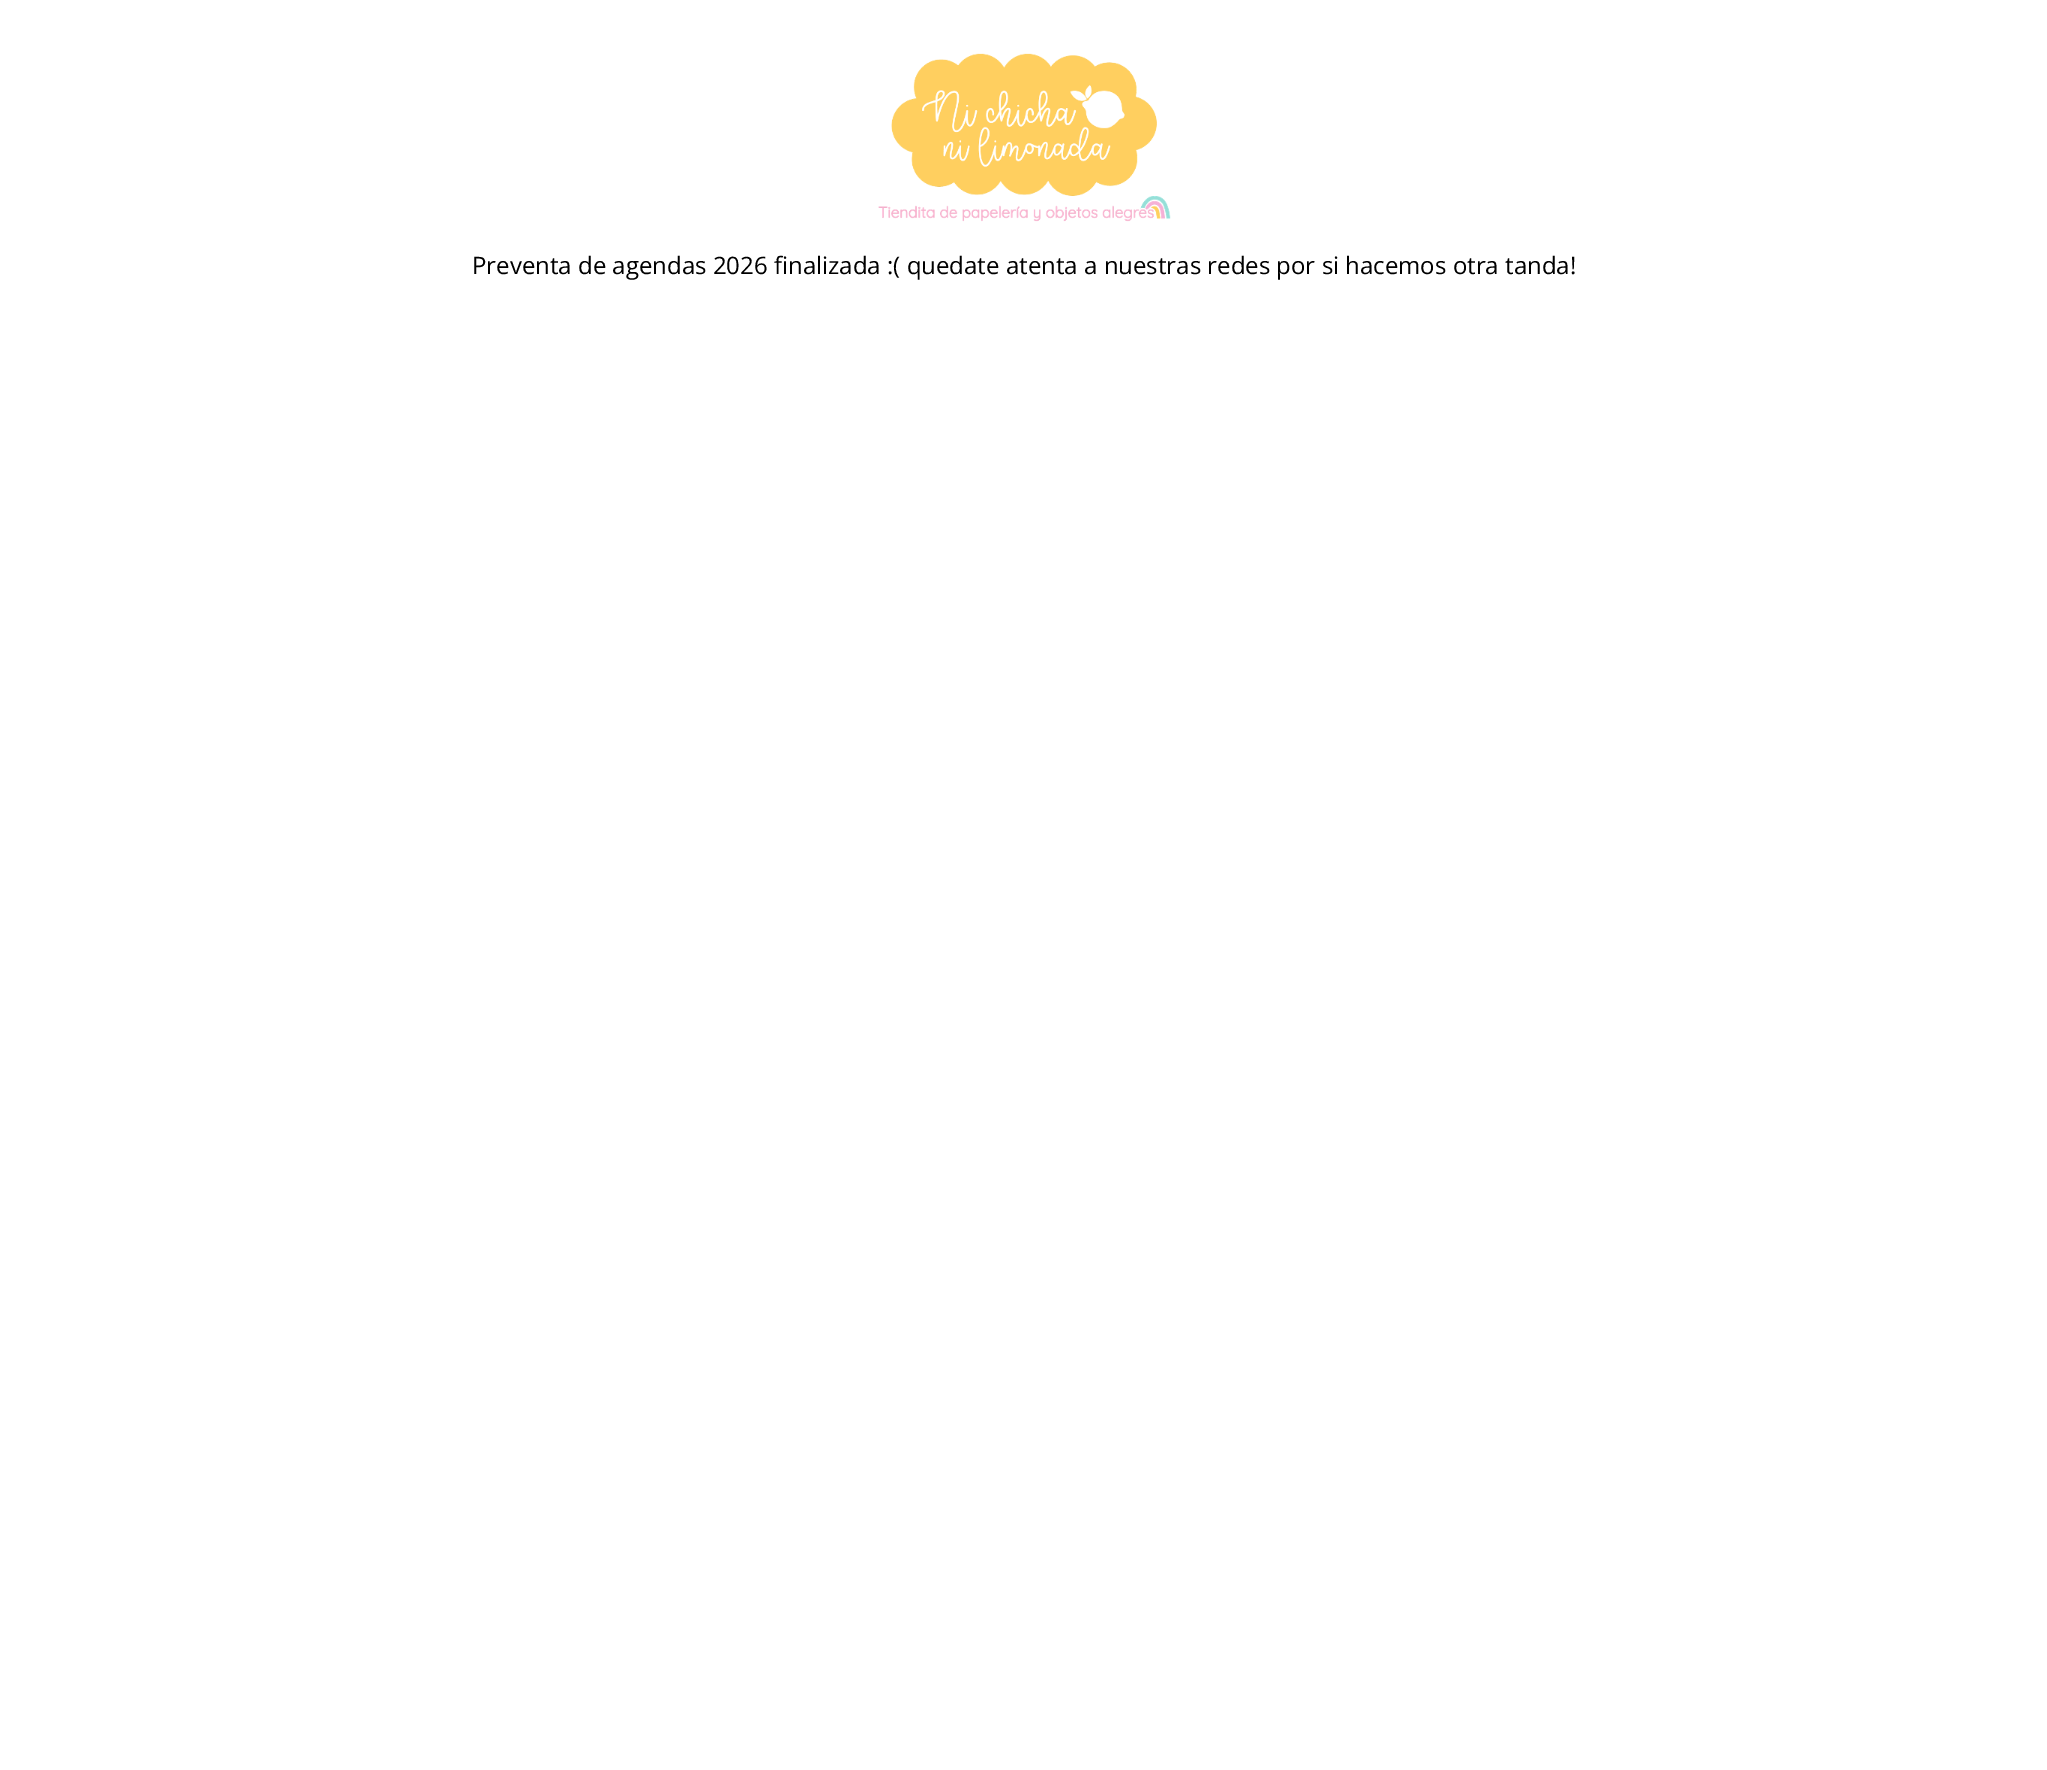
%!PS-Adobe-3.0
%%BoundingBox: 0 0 2047 1770
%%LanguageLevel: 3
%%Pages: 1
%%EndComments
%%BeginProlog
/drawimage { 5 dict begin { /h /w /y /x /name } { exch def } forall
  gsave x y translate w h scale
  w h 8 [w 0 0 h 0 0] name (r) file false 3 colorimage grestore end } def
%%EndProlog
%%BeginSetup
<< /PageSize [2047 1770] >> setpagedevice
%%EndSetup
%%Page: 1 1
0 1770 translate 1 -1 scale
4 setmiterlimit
1 setgray
0 0 2047 1770 rectfill
(images/1.raw) 878 53 293 169 drawimage
/OpenSans-Regular [24 0 0 -24 0 0] selectfont
0 setgray
472 274 moveto (Preventa de agendas 2026 finalizada :\( quedate atenta a nuestras redes por si hacemos otra tanda!) show
showpage
%%EOF
